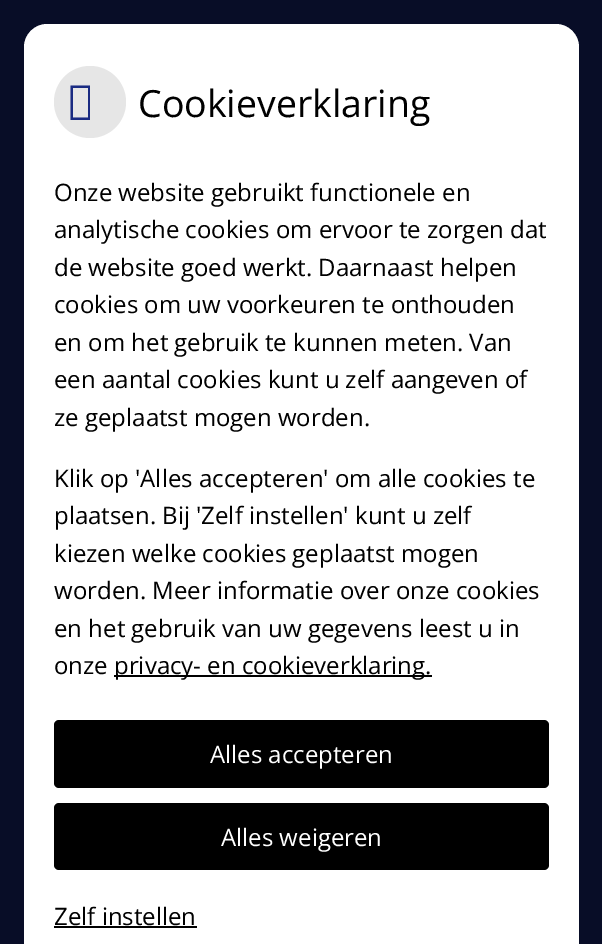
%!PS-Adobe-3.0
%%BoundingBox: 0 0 602 944
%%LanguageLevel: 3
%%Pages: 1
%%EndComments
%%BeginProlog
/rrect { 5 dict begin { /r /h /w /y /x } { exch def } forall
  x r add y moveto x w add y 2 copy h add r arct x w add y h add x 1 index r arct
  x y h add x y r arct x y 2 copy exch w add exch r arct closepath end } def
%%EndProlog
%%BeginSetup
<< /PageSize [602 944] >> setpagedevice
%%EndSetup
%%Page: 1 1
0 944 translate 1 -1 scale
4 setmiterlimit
0.031 0.051 0.153 setrgbcolor
0 0 602 944 rectfill
1 setgray
newpath 47 24 moveto 556 24 lineto 568.5 24 579 34.5 579 47 curveto 579 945 lineto 24 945 lineto 24 47 lineto 24 34.5 34.5 24 47 24 curveto closepath fill
0.902 setgray
newpath 90 102 36 0 360 arc closepath fill
0.102 0.169 0.51 setrgbcolor
newpath 70.5 120 moveto 70.5 85.5 lineto 90 85.5 lineto 90 120 lineto closepath 73 117.5 moveto 88 117.5 lineto 88 88 lineto 73 88 lineto closepath fill
0 setgray
114 675 318 2 rectfill
54 720 495 68 5 rrect fill
54 803 495 67 5 rrect fill
54 926 143 2 rectfill
/OpenSans-Regular [37.5 0 0 -37.5 0 0] selectfont
138 117 moveto (Cookieverklaring) show
/OpenSans-Regular [24 0 0 -24 0 0] selectfont
54 201 moveto (Onze website gebruikt functionele en) show
54 238 moveto (analytische cookies om ervoor te zorgen dat) show
54 276 moveto (de website goed werkt. Daarnaast helpen) show
54 313 moveto (cookies om uw voorkeuren te onthouden) show
54 351 moveto (en om het gebruik te kunnen meten. Van) show
54 388 moveto (een aantal cookies kunt u zelf aangeven of) show
54 426 moveto (ze geplaatst mogen worden.) show
54 487 moveto (Klik op 'Alles accepteren' om alle cookies te) show
54 524 moveto (plaatsen. Bij 'Zelf instellen' kunt u zelf) show
54 562 moveto (kiezen welke cookies geplaatst mogen) show
54 599 moveto (worden. Meer informatie over onze cookies) show
54 637 moveto (en het gebruik van uw gegevens leest u in) show
54 674 moveto (onze) show
114 674 moveto (privacy- en cookieverklaring.) show
1 setgray
210 763 moveto (Alles accepteren) show
221 846 moveto (Alles weigeren) show
0 setgray
54 925 moveto (Zelf instellen) show
showpage
%%EOF
